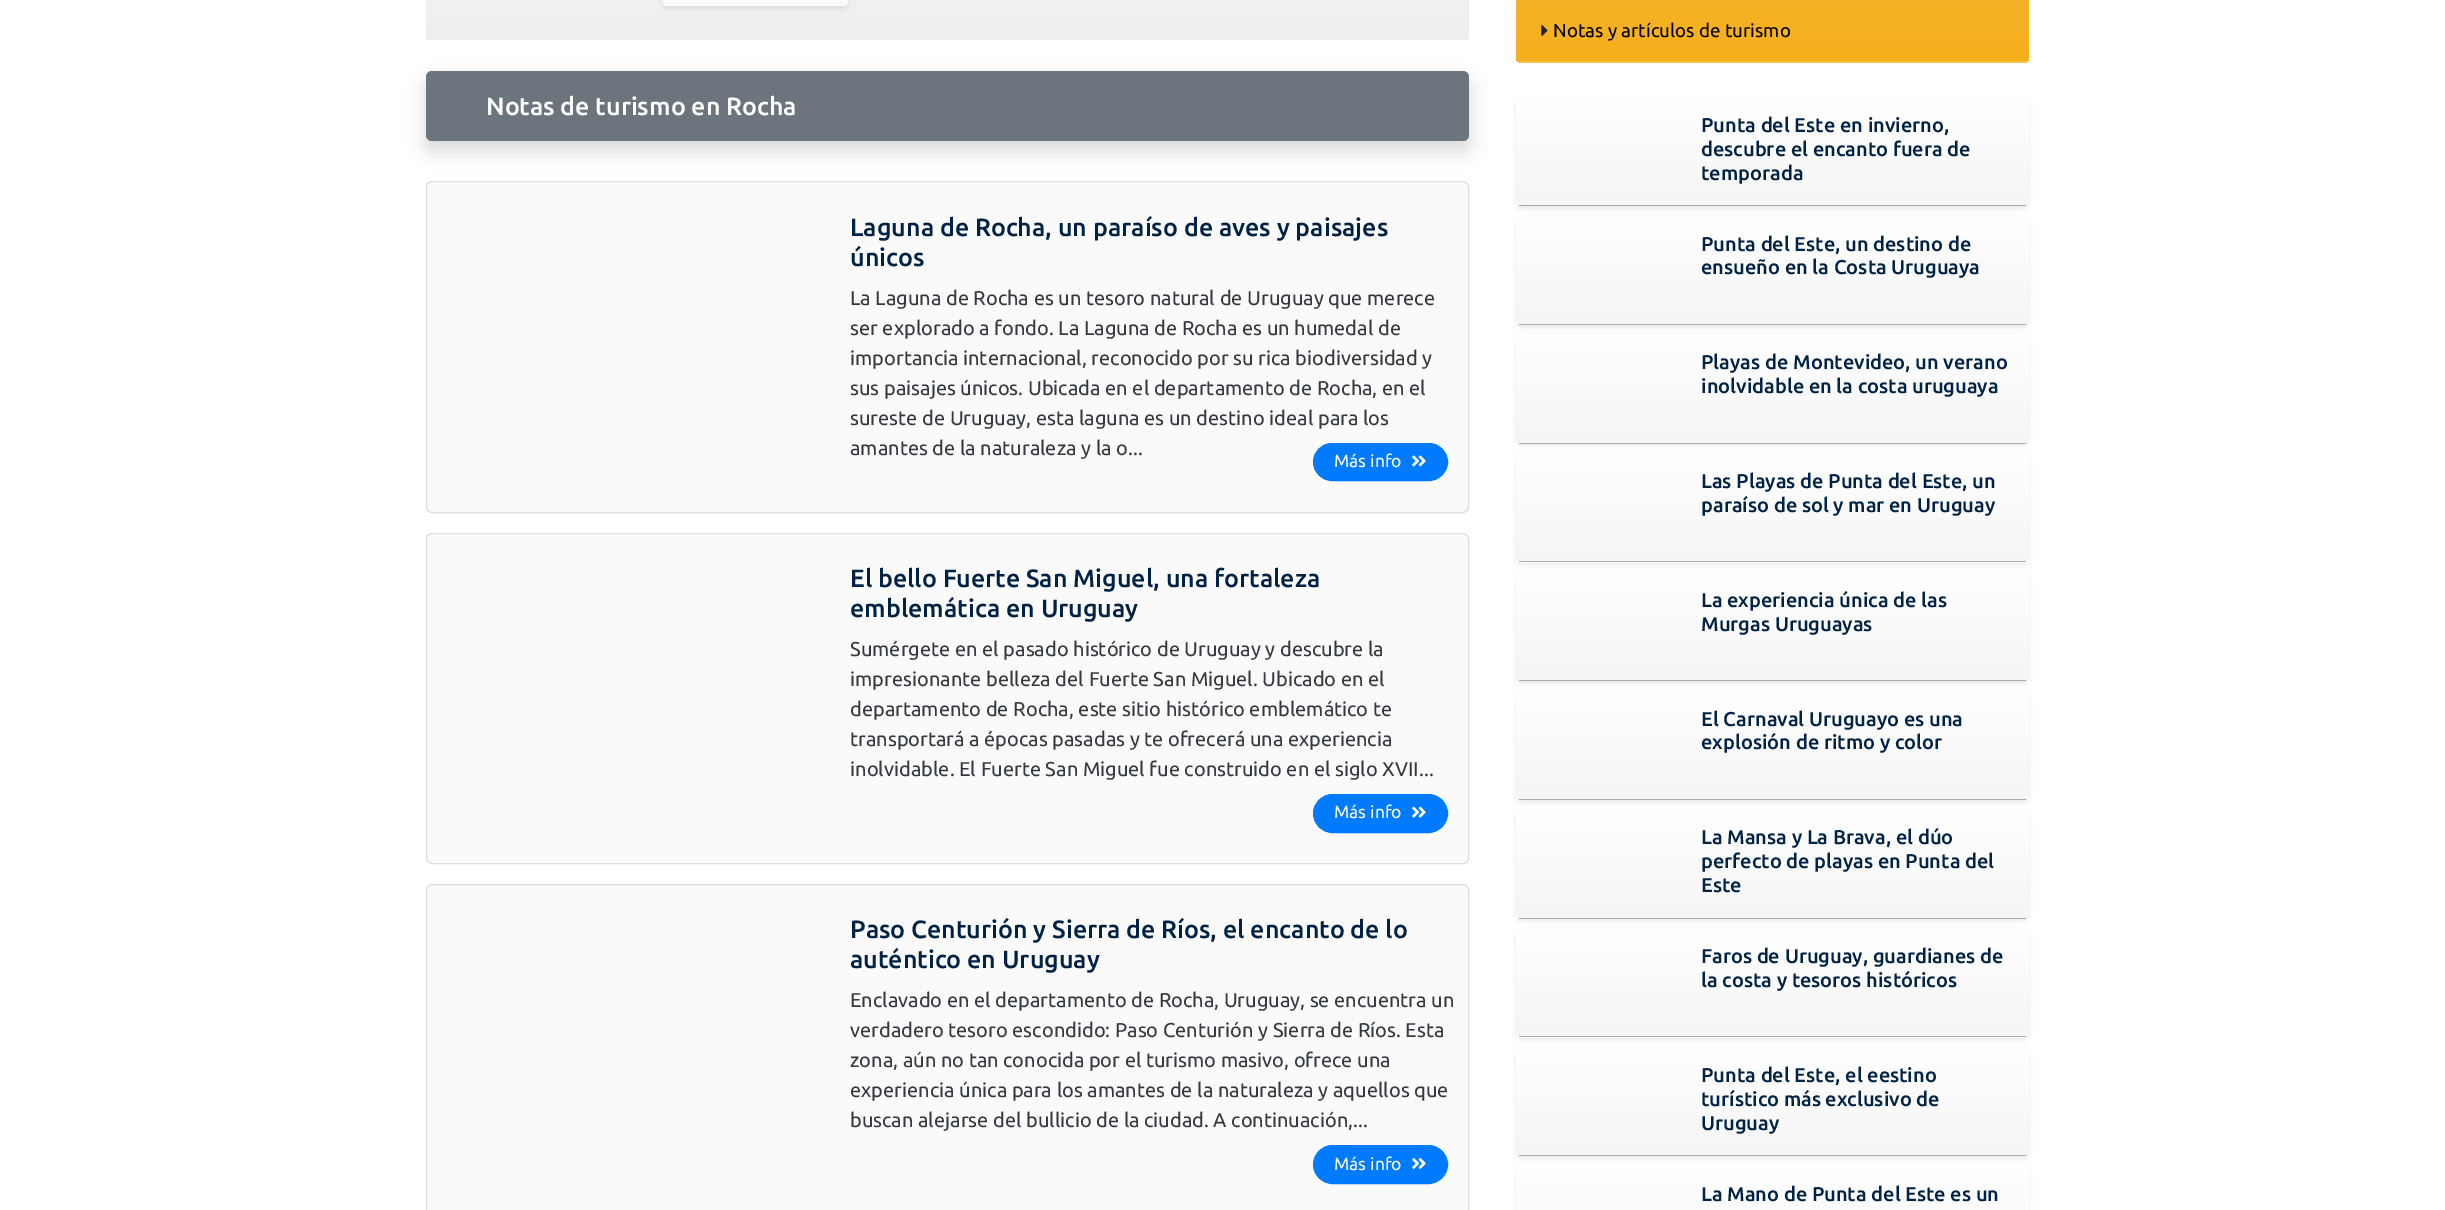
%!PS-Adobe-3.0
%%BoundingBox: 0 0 2445 1210
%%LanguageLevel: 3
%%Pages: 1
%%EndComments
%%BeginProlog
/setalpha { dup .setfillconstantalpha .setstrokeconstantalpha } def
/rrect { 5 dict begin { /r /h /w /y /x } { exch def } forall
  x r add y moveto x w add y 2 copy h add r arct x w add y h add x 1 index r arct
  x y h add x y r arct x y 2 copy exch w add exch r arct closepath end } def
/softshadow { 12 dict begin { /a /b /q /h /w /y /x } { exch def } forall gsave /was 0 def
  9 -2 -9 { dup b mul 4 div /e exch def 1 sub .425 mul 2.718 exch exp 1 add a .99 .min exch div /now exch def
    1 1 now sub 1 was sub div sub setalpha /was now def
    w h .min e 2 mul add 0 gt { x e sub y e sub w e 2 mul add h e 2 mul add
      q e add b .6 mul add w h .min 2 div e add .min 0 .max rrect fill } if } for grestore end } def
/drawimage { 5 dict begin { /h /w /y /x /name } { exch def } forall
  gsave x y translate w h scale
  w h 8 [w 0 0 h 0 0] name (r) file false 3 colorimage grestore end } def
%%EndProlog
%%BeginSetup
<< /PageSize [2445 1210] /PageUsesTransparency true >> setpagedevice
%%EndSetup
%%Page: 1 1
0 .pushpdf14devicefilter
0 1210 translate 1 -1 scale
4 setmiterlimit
1 setgray
0 0 2445 1210 rectfill
gsave
426 -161 1043 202 6 rrect clip newpath
gsave newpath 426 0 moveto 1469 0 lineto 1469 40 lineto 426 40 lineto closepath clip newpath
<< /ShadingType 2 /ColorSpace /DeviceRGB /Coords [948 -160 948 40] /Extend [true true] /Function << /FunctionType 2 /Domain [0 1] /C0 [0.988 0.988 0.988] /C1 [0.933 0.933 0.933] /N 1 >> >> shfill grestore
gsave newpath 426 40 moveto 1469 40 lineto 1469 41 lineto 426 41 lineto closepath clip newpath
<< /ShadingType 2 /ColorSpace /DeviceRGB /Coords [948 40 948 240] /Extend [true true] /Function << /FunctionType 2 /Domain [0 1] /C0 [0.988 0.988 0.988] /C1 [0.933 0.933 0.933] /N 1 >> >> shfill grestore
grestore
0 setgray
663 -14 185 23 6 2.5 0.07 softshadow
gsave
663 -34 185 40 6 rrect clip newpath
gsave newpath 663 0 moveto 848 0 lineto 848 5 lineto 663 5 lineto closepath clip newpath
<< /ShadingType 2 /ColorSpace /DeviceRGB /Coords [755 -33 755 5] /Extend [true true] /Function << /FunctionType 2 /Domain [0 1] /C0 [1 1 1] /C1 [0.98 0.98 0.98] /N 1 >> >> shfill grestore
gsave newpath 663 5 moveto 848 5 lineto 848 6 lineto 663 6 lineto closepath clip newpath
<< /ShadingType 2 /ColorSpace /DeviceRGB /Coords [755 5 755 43] /Extend [true true] /Function << /FunctionType 2 /Domain [0 1] /C0 [1 1 1] /C1 [0.98 0.98 0.98] /N 1 >> >> shfill grestore
grestore
426 81 1043 70 6 10 0.15 softshadow
0.424 0.459 0.49 setrgbcolor
426 71 1043 70 6 rrect fill
0.98 setgray
426.5 181.5 1042 331 5.5 rrect gsave fill grestore
0.867 setgray
stroke
0 0.482 1 setrgbcolor
1313.5 443.5 134 37 18.5 rrect gsave fill grestore
stroke
(images/1.raw) 1412 455 14 12 drawimage
0.98 setgray
426.5 533.5 1042 330 5.5 rrect gsave fill grestore
0.867 setgray
stroke
0 0.482 1 setrgbcolor
1313.5 794.5 134 38 19 rrect gsave fill grestore
stroke
(images/2.raw) 1412 806 14 12 drawimage
0.98 setgray
426.5 884.5 1042 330 5.5 rrect gsave fill grestore
0.867 setgray
stroke
0 0.482 1 setrgbcolor
1313.5 1145.5 134 38 19 rrect gsave fill grestore
stroke
(images/3.raw) 1412 1158 14 11 drawimage
gsave
1516 -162 513 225 6 rrect clip newpath
gsave newpath 1516 0 moveto 2029 0 lineto 2029 61 lineto 1516 61 lineto closepath clip newpath
<< /ShadingType 2 /ColorSpace /DeviceRGB /Coords [1773 -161 1773 61] /Extend [true true] /Function << /FunctionType 2 /Domain [0 1] /C0 [0.965 0.749 0.271] /C1 [0.965 0.686 0.11] /N 1 >> >> shfill grestore
gsave newpath 1516 61 moveto 2029 61 lineto 2029 63 lineto 1516 63 lineto closepath clip newpath
<< /ShadingType 2 /ColorSpace /DeviceRGB /Coords [1773 61 1773 284] /Extend [true true] /Function << /FunctionType 2 /Domain [0 1] /C0 [0.965 0.749 0.271] /C1 [0.965 0.686 0.11] /N 1 >> >> shfill grestore
grestore
(images/4.raw) 1541 25 7 11 drawimage
0 setgray
1516 100 513 109 6 2.5 0.07 softshadow
gsave
1516 98 513 108 6 rrect clip newpath
gsave newpath 1522 98 moveto 2023 98 lineto 2026.5 98 2029 100.5 2029 104 curveto 2029 205 lineto 1516 205 lineto 1516 104 lineto 1516 100.5 1518.5 98 1522 98 curveto closepath clip newpath
<< /ShadingType 2 /ColorSpace /DeviceRGB /Coords [1773 97 1773 205] /Extend [true true] /Function << /FunctionType 2 /Domain [0 1] /C0 [1 1 1] /C1 [0.961 0.961 0.961] /N 1 >> >> shfill grestore
grestore
0.667 setgray
1519 205 507 1 rectfill
0 setgray
1516 219 513 109 6 2.5 0.07 softshadow
gsave
1516 216 513 109 6 rrect clip newpath
gsave newpath 1522 216 moveto 2023 216 lineto 2026.5 216 2029 218.5 2029 222 curveto 2029 324 lineto 1516 324 lineto 1516 222 lineto 1516 218.5 1518.5 216 1522 216 curveto closepath clip newpath
<< /ShadingType 2 /ColorSpace /DeviceRGB /Coords [1773 216 1773 324] /Extend [true true] /Function << /FunctionType 2 /Domain [0 1] /C0 [1 1 1] /C1 [0.961 0.961 0.961] /N 1 >> >> shfill grestore
grestore
0.667 setgray
1519 324 507 1 rectfill
0 setgray
1516 338 513 108 6 2.5 0.07 softshadow
gsave
1516 335 513 109 6 rrect clip newpath
gsave newpath 1522 335 moveto 2023 335 lineto 2026.5 335 2029 337.5 2029 341 curveto 2029 443 lineto 1516 443 lineto 1516 341 lineto 1516 337.5 1518.5 335 1522 335 curveto closepath clip newpath
<< /ShadingType 2 /ColorSpace /DeviceRGB /Coords [1773 335 1773 443] /Extend [true true] /Function << /FunctionType 2 /Domain [0 1] /C0 [1 1 1] /C1 [0.961 0.961 0.961] /N 1 >> >> shfill grestore
grestore
0.667 setgray
1519 443 507 1 rectfill
0 setgray
1516 456 513 109 6 2.5 0.07 softshadow
gsave
1516 454 513 109 6 rrect clip newpath
gsave newpath 1522 454 moveto 2023 454 lineto 2026.5 454 2029 456.5 2029 460 curveto 2029 561 lineto 1516 561 lineto 1516 460 lineto 1516 456.5 1518.5 454 1522 454 curveto closepath clip newpath
<< /ShadingType 2 /ColorSpace /DeviceRGB /Coords [1773 454 1773 561] /Extend [true true] /Function << /FunctionType 2 /Domain [0 1] /C0 [1 1 1] /C1 [0.961 0.961 0.961] /N 1 >> >> shfill grestore
gsave newpath 1516 561 moveto 2029 561 lineto 2029 563 lineto 1516 563 lineto closepath clip newpath
<< /ShadingType 2 /ColorSpace /DeviceRGB /Coords [1773 561 1773 669] /Extend [true true] /Function << /FunctionType 2 /Domain [0 1] /C0 [1 1 1] /C1 [0.961 0.961 0.961] /N 1 >> >> shfill grestore
grestore
0.667 setgray
1519 561 507 1 rectfill
0 setgray
1516 575 513 109 6 2.5 0.07 softshadow
gsave
1516 573 513 108 6 rrect clip newpath
gsave newpath 1522 573 moveto 2023 573 lineto 2026.5 573 2029 575.5 2029 579 curveto 2029 680 lineto 1516 680 lineto 1516 579 lineto 1516 575.5 1518.5 573 1522 573 curveto closepath clip newpath
<< /ShadingType 2 /ColorSpace /DeviceRGB /Coords [1773 573 1773 680] /Extend [true true] /Function << /FunctionType 2 /Domain [0 1] /C0 [1 1 1] /C1 [0.961 0.961 0.961] /N 1 >> >> shfill grestore
grestore
0.667 setgray
1519 680 507 1 rectfill
0 setgray
1516 694 513 109 6 2.5 0.07 softshadow
gsave
1516 691 513 109 6 rrect clip newpath
gsave newpath 1522 691 moveto 2023 691 lineto 2026.5 691 2029 693.5 2029 697 curveto 2029 799 lineto 1516 799 lineto 1516 697 lineto 1516 693.5 1518.5 691 1522 691 curveto closepath clip newpath
<< /ShadingType 2 /ColorSpace /DeviceRGB /Coords [1773 691 1773 799] /Extend [true true] /Function << /FunctionType 2 /Domain [0 1] /C0 [1 1 1] /C1 [0.961 0.961 0.961] /N 1 >> >> shfill grestore
grestore
0.667 setgray
1519 799 507 1 rectfill
0 setgray
1516 813 513 108 6 2.5 0.07 softshadow
gsave
1516 810 513 109 6 rrect clip newpath
gsave newpath 1522 810 moveto 2023 810 lineto 2026.5 810 2029 812.5 2029 816 curveto 2029 918 lineto 1516 918 lineto 1516 816 lineto 1516 812.5 1518.5 810 1522 810 curveto closepath clip newpath
<< /ShadingType 2 /ColorSpace /DeviceRGB /Coords [1773 810 1773 918] /Extend [true true] /Function << /FunctionType 2 /Domain [0 1] /C0 [1 1 1] /C1 [0.961 0.961 0.961] /N 1 >> >> shfill grestore
grestore
0.667 setgray
1519 918 507 1 rectfill
0 setgray
1516 931 513 109 6 2.5 0.07 softshadow
gsave
1516 929 513 109 6 rrect clip newpath
gsave newpath 1522 929 moveto 2023 929 lineto 2026.5 929 2029 931.5 2029 935 curveto 2029 1036 lineto 1516 1036 lineto 1516 935 lineto 1516 931.5 1518.5 929 1522 929 curveto closepath clip newpath
<< /ShadingType 2 /ColorSpace /DeviceRGB /Coords [1773 929 1773 1036] /Extend [true true] /Function << /FunctionType 2 /Domain [0 1] /C0 [1 1 1] /C1 [0.961 0.961 0.961] /N 1 >> >> shfill grestore
gsave newpath 1516 1036 moveto 2029 1036 lineto 2029 1038 lineto 1516 1038 lineto closepath clip newpath
<< /ShadingType 2 /ColorSpace /DeviceRGB /Coords [1773 1036 1773 1144] /Extend [true true] /Function << /FunctionType 2 /Domain [0 1] /C0 [1 1 1] /C1 [0.961 0.961 0.961] /N 1 >> >> shfill grestore
grestore
0.667 setgray
1519 1036 507 1 rectfill
0 setgray
1516 1050 513 109 6 2.5 0.07 softshadow
gsave
1516 1048 513 108 6 rrect clip newpath
gsave newpath 1522 1048 moveto 2023 1048 lineto 2026.5 1048 2029 1050.5 2029 1054 curveto 2029 1155 lineto 1516 1155 lineto 1516 1054 lineto 1516 1050.5 1518.5 1048 1522 1048 curveto closepath clip newpath
<< /ShadingType 2 /ColorSpace /DeviceRGB /Coords [1773 1048 1773 1155] /Extend [true true] /Function << /FunctionType 2 /Domain [0 1] /C0 [1 1 1] /C1 [0.961 0.961 0.961] /N 1 >> >> shfill grestore
grestore
0.667 setgray
1519 1155 507 1 rectfill
0 setgray
1516 1169 513 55 6 2.5 0.07 softshadow
gsave
1516 1166 513 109 6 rrect clip newpath
gsave newpath 1522 1166 moveto 2023 1166 lineto 2026.5 1166 2029 1168.5 2029 1172 curveto 2029 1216 lineto 1516 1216 lineto 1516 1172 lineto 1516 1168.5 1518.5 1166 1522 1166 curveto closepath clip newpath
<< /ShadingType 2 /ColorSpace /DeviceRGB /Coords [1773 1166 1773 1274] /Extend [true true] /Function << /FunctionType 2 /Domain [0 1] /C0 [1 1 1] /C1 [0.961 0.961 0.961] /N 1 >> >> shfill grestore
grestore
/Ubuntu-Medium [25 0 0 -25 0 0] selectfont
1 setgray
486 115 moveto (Notas de turismo en Rocha) show
0 0.133 0.267 setrgbcolor
850 236 moveto (Laguna de Rocha, un paraíso de aves y paisajes) show
850 266 moveto (únicos) show
/Ubuntu-Regular [20 0 0 -20 0 0] selectfont
0.204 0.227 0.251 setrgbcolor
850 305 moveto (La Laguna de Rocha es un tesoro natural de Uruguay que merece) show
850 335 moveto (ser explorado a fondo. La Laguna de Rocha es un humedal de) show
850 365 moveto (importancia internacional, reconocido por su rica biodiversidad y) show
850 395 moveto (sus paisajes únicos. Ubicada en el departamento de Rocha, en el) show
850 425 moveto (sureste de Uruguay, esta laguna es un destino ideal para los) show
850 455 moveto (amantes de la naturaleza y la o...) show
/Ubuntu-Regular [17.5 0 0 -17.5 0 0] selectfont
1 setgray
1334 467 moveto (Más info) show
/Ubuntu-Medium [25 0 0 -25 0 0] selectfont
0 0.133 0.267 setrgbcolor
850 587 moveto (El bello Fuerte San Miguel, una fortaleza) show
850 617 moveto (emblemática en Uruguay) show
/Ubuntu-Regular [20 0 0 -20 0 0] selectfont
0.204 0.227 0.251 setrgbcolor
850 656 moveto (Sumérgete en el pasado histórico de Uruguay y descubre la) show
850 686 moveto (impresionante belleza del Fuerte San Miguel. Ubicado en el) show
850 716 moveto (departamento de Rocha, este sitio histórico emblemático te) show
850 746 moveto (transportará a épocas pasadas y te ofrecerá una experiencia) show
850 776 moveto (inolvidable. El Fuerte San Miguel fue construido en el siglo XVII...) show
/Ubuntu-Regular [17.5 0 0 -17.5 0 0] selectfont
1 setgray
1334 818 moveto (Más info) show
/Ubuntu-Medium [25 0 0 -25 0 0] selectfont
0 0.133 0.267 setrgbcolor
850 938 moveto (Paso Centurión y Sierra de Ríos, el encanto de lo) show
850 968 moveto (auténtico en Uruguay) show
/Ubuntu-Regular [20 0 0 -20 0 0] selectfont
0.204 0.227 0.251 setrgbcolor
850 1007 moveto (Enclavado en el departamento de Rocha, Uruguay, se encuentra un) show
850 1037 moveto (verdadero tesoro escondido: Paso Centurión y Sierra de Ríos. Esta) show
850 1067 moveto (zona, aún no tan conocida por el turismo masivo, ofrece una) show
850 1097 moveto (experiencia única para los amantes de la naturaleza y aquellos que) show
850 1127 moveto (buscan alejarse del bullicio de la ciudad. A continuación,...) show
/Ubuntu-Regular [17.5 0 0 -17.5 0 0] selectfont
1 setgray
1334 1170 moveto (Más info) show
/Ubuntu-Regular [18.75 0 0 -18.75 0 0] selectfont
0 setgray
1553 37 moveto (Notas y artículos de turismo) show
/Ubuntu-Medium [20 0 0 -20 0 0] selectfont
0 0.133 0.267 setrgbcolor
1701 132 moveto (Punta del Este en invierno,) show
1701 156 moveto (descubre el encanto fuera de) show
1701 180 moveto (temporada) show
1701 251 moveto (Punta del Este, un destino de) show
1701 274 moveto (ensueño en la Costa Uruguaya) show
1701 369 moveto (Playas de Montevideo, un verano) show
1701 393 moveto (inolvidable en la costa uruguaya) show
1701 488 moveto (Las Playas de Punta del Este, un) show
1701 512 moveto (paraíso de sol y mar en Uruguay) show
1701 607 moveto (La experiencia única de las) show
1701 631 moveto (Murgas Uruguayas) show
1701 726 moveto (El Carnaval Uruguayo es una) show
1701 749 moveto (explosión de ritmo y color) show
1701 844 moveto (La Mansa y La Brava, el dúo) show
1701 868 moveto (perfecto de playas en Punta del) show
1701 892 moveto (Este) show
1701 963 moveto (Faros de Uruguay, guardianes de) show
1701 987 moveto (la costa y tesoros históricos) show
1701 1082 moveto (Punta del Este, el eestino) show
1701 1106 moveto (turístico más exclusivo de) show
1701 1130 moveto (Uruguay) show
1701 1201 moveto (La Mano de Punta del Este es un) show
.poppdf14devicefilter showpage
%%EOF
